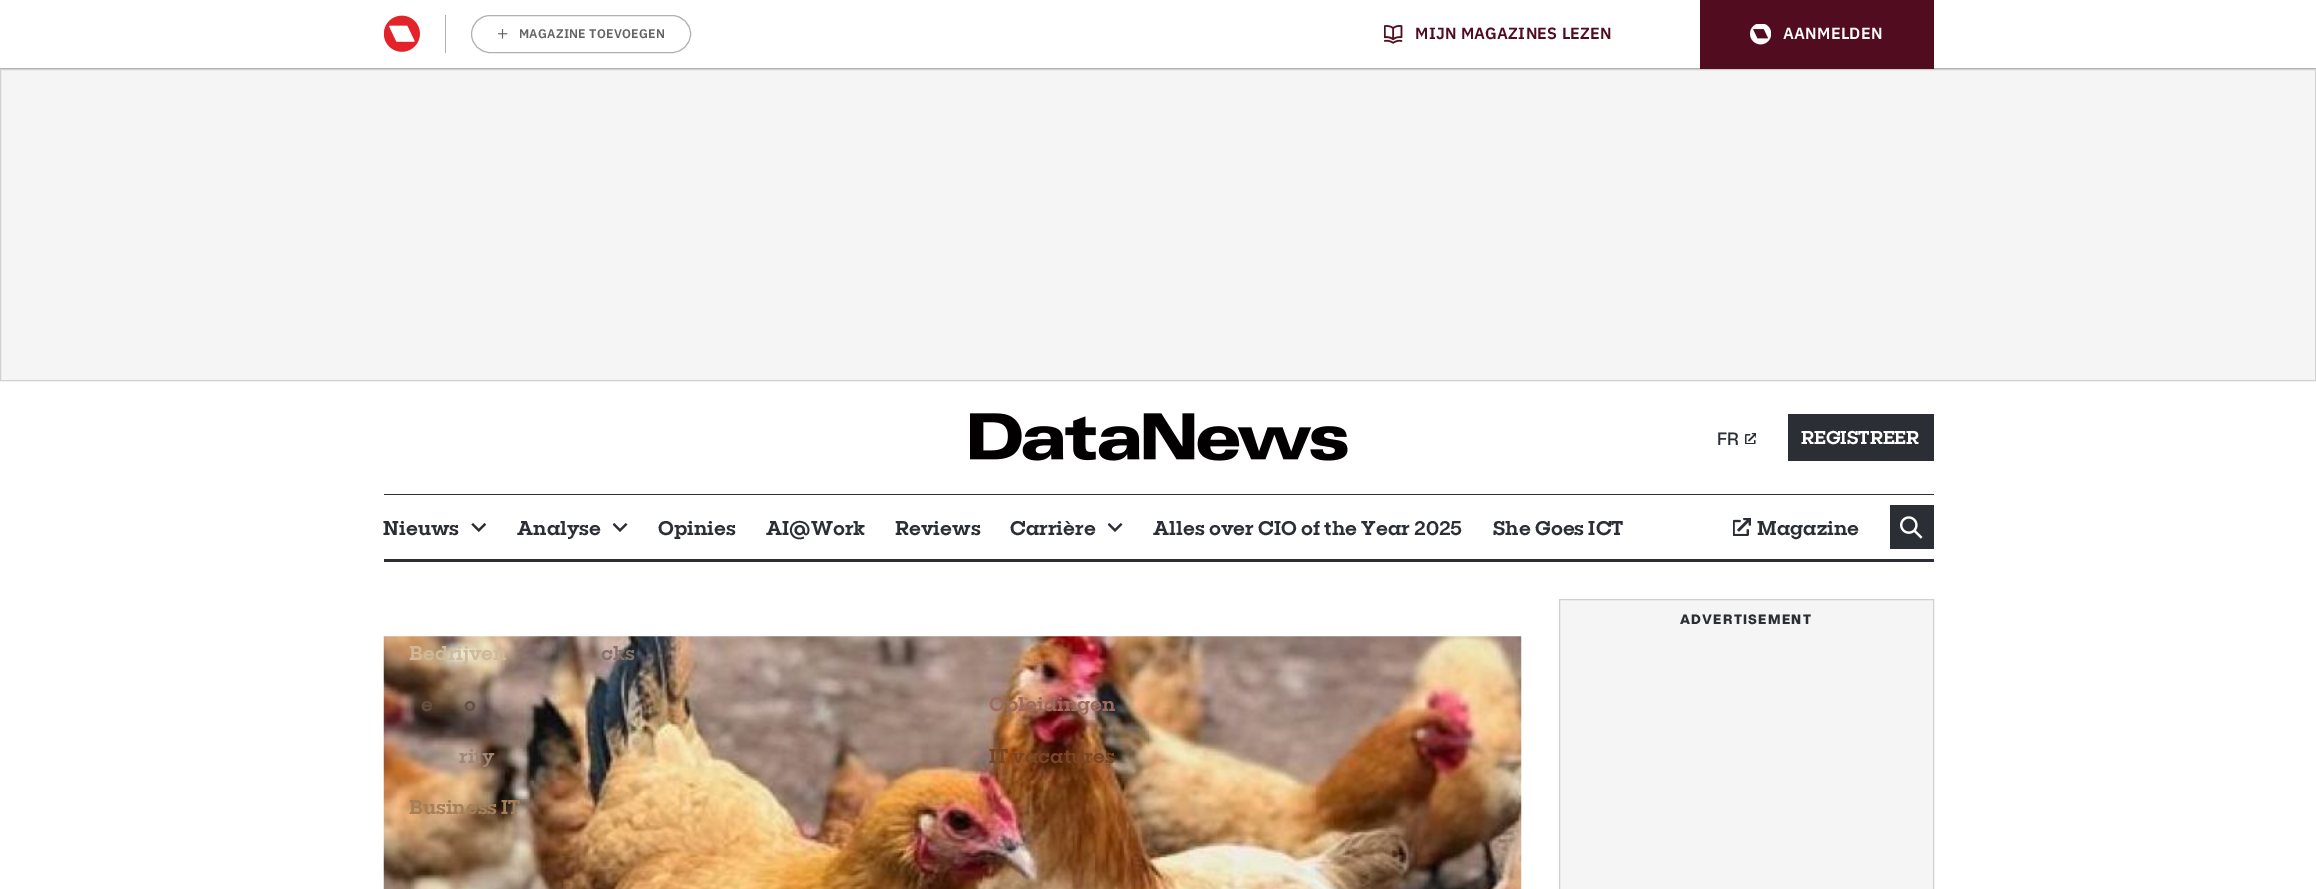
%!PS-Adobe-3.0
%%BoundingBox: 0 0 2316 889
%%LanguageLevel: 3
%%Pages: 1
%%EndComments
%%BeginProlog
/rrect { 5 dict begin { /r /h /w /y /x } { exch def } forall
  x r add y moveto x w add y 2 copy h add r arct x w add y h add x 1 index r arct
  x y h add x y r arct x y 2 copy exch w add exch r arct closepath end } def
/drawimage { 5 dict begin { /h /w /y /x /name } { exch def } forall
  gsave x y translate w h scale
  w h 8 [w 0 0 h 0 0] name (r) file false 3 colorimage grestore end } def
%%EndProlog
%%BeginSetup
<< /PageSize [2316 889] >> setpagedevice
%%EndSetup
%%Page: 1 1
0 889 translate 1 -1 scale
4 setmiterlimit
1 setgray
0 0 2316 889 rectfill
0.698 setgray
0 68 2316 1 rectfill
0.698 0.694 0.694 setrgbcolor
445 15 1 38 rectfill
(images/1.raw) 384 15 36 37 drawimage
471.5 15.5 219 37 18.5 rrect stroke
(images/2.raw) 498 29 10 10 drawimage
(images/3.raw) 1384 25 19 19 drawimage
0.322 0.047 0.125 setrgbcolor
1700 0 234 69 rectfill
(images/4.raw) 1750 24 21 21 drawimage
0.961 setgray
newpath 0.5 69.5 moveto 2315.5 69.5 lineto 2315.5 380.5 lineto 0.5 380.5 lineto closepath gsave fill grestore
0.82 setgray
stroke
(images/5.raw) 970 413 378 48 drawimage
(images/6.raw) 1745 433 11 11 drawimage
0.169 0.18 0.204 setrgbcolor
1788 414 146 47 rectfill
384 494 1550 1 rectfill
384 559 1550 3 rectfill
(images/7.raw) 471 523 15 9 drawimage
(images/8.raw) 613 523 15 9 drawimage
(images/8.raw) 1108 523 15 9 drawimage
(images/9.raw) 1733 518 18 18 drawimage
1890 505 44 44 rectfill
(images/10.raw) 1900 516 23 23 drawimage
0.961 setgray
newpath 1559.5 599.5 moveto 1933.5 599.5 lineto 1933.5 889.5 lineto 1559.5 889.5 lineto closepath gsave fill grestore
0.82 setgray
stroke
(images/11.raw) 383 636 1139 253 drawimage
/IBMPlexSans-SemiBold [12.5 0 0 -12.5 0 0] selectfont
0.392 0.388 0.388 setrgbcolor
519 38 moveto 0.25 0 (MAGAZINE TOEVOEGEN) ashow
/IBMPlexSans-SemiBold [16.25 0 0 -16.25 0 0] selectfont
0.322 0.047 0.125 setrgbcolor
1415 39 moveto 0.25 0 (MIJN MAGAZINES LEZEN) ashow
1 setgray
1783 39 moveto 0.25 0 (AANMELDEN) ashow
/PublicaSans-Regular [18 0 0 -18 0 0] selectfont
0.169 0.18 0.204 setrgbcolor
1717 445 moveto (FR) show
/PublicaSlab-Medium [18.75 0 0 -18.75 0 0] selectfont
1 setgray
1801 444 moveto (REGISTREER) show
/PublicaSlab-Medium [20 0 0 -20 0 0] selectfont
0.169 0.18 0.204 setrgbcolor
383 535 moveto (Nieuws) show
0.816 0.725 0.6 setrgbcolor
409 660 moveto (Bedrijven) show
0.392 0.31 0.259 setrgbcolor
421 711 moveto (e) show
464 711 moveto (o) show
0.627 0.529 0.459 setrgbcolor
459 763 moveto (rity) show
0.643 0.498 0.353 setrgbcolor
409 814 moveto (Business IT) show
0.169 0.18 0.204 setrgbcolor
517 535 moveto (Analyse) show
0.522 0.447 0.42 setrgbcolor
601 660 moveto (cks) show
0.169 0.18 0.204 setrgbcolor
658 535 moveto (Opinies) show
766 535 moveto (AI@Work) show
895 535 moveto (Reviews) show
1010 535 moveto (Carrière) show
0.616 0.424 0.361 setrgbcolor
989 711 moveto (Opleidingen) show
0.482 0.271 0.133 setrgbcolor
989 763 moveto (IT vacatures) show
0.169 0.18 0.204 setrgbcolor
1153 535 moveto (Alles over CIO of the Year 2025) show
1493 535 moveto (She Goes ICT) show
1757 535 moveto (Magazine) show
/PublicaSans-Bold [13.75 0 0 -13.75 0 0] selectfont
1680 624 moveto 1.25 0 (ADVERTISEMENT) ashow
showpage
%%EOF
